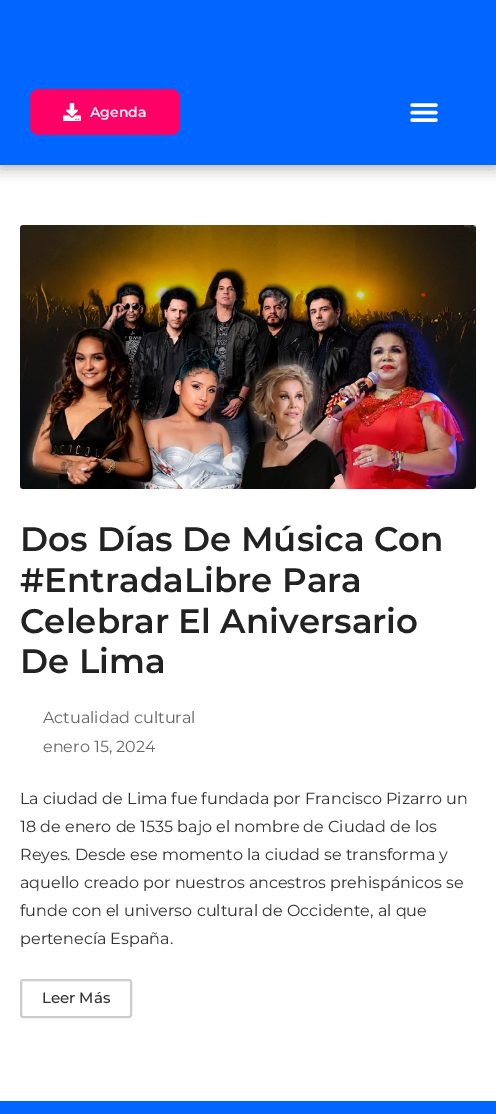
%!PS-Adobe-3.0
%%BoundingBox: 0 0 496 1114
%%LanguageLevel: 3
%%Pages: 1
%%EndComments
%%BeginProlog
/setalpha { dup .setfillconstantalpha .setstrokeconstantalpha } def
/rrect { 5 dict begin { /r /h /w /y /x } { exch def } forall
  x r add y moveto x w add y 2 copy h add r arct x w add y h add x 1 index r arct
  x y h add x y r arct x y 2 copy exch w add exch r arct closepath end } def
/softshadow { 12 dict begin { /a /b /q /h /w /y /x } { exch def } forall gsave /was 0 def
  9 -2 -9 { dup b mul 4 div /e exch def 1 sub .425 mul 2.718 exch exp 1 add a .99 .min exch div /now exch def
    1 1 now sub 1 was sub div sub setalpha /was now def
    w h .min e 2 mul add 0 gt { x e sub y e sub w e 2 mul add h e 2 mul add
      q e add b .6 mul add w h .min 2 div e add .min 0 .max rrect fill } if } for grestore end } def
/drawimage { 5 dict begin { /h /w /y /x /name } { exch def } forall
  gsave x y translate w h scale
  w h 8 [w 0 0 h 0 0] name (r) file false 3 colorimage grestore end } def
%%EndProlog
%%BeginSetup
<< /PageSize [496 1114] /PageUsesTransparency true >> setpagedevice
%%EndSetup
%%Page: 1 1
0 .pushpdf14devicefilter
0 1114 translate 1 -1 scale
4 setmiterlimit
1 setgray
0 0 496 1114 rectfill
0 setgray
0 4 496 165 0 7 0.28 softshadow
0 0.4 1 setrgbcolor
0 0 496 165 rectfill
1 0 0.4 setrgbcolor
30 89 150 46 9 rrect fill
(images/1.raw) 63 103 18 18 drawimage
(images/2.raw) 410 103 28 19 drawimage
(images/3.raw) 20 225 456 264 drawimage
0.8 setgray
2 setlinewidth
21 980 110 37 2 rrect stroke
0 0.4 1 setrgbcolor
0 1101 496 13 rectfill
/Montserrat-SemiBold [14 0 0 -14 0 0] selectfont
1 setgray
90 117 moveto (Agenda) show
/Montserrat-SemiBold [34 0 0 -34 0 0] selectfont
0.133 setgray
20 551 moveto (Dos Días De Música Con) show
20 592 moveto (#EntradaLibre Para) show
20 633 moveto (Celebrar El Aniversario) show
20 673 moveto (De Lima) show
/Montserrat-Regular [16 0 0 -16 0 0] selectfont
0.4 setgray
43 723 moveto (Actualidad cultural) show
43 752 moveto (enero 15, 2024) show
0.2 setgray
20 804 moveto (La ciudad de Lima fue fundada por Francisco Pizarro un) show
20 832 moveto (18 de enero de 1535 bajo el nombre de Ciudad de los) show
20 860 moveto (Reyes. Desde ese momento la ciudad se transforma y) show
20 888 moveto (aquello creado por nuestros ancestros prehispánicos se) show
20 916 moveto (funde con el universo cultural de Occidente, al que) show
20 944 moveto (pertenecía España.) show
/Montserrat-Medium [15 0 0 -15 0 0] selectfont
42 1003 moveto (Leer Más) show
.poppdf14devicefilter showpage
%%EOF
